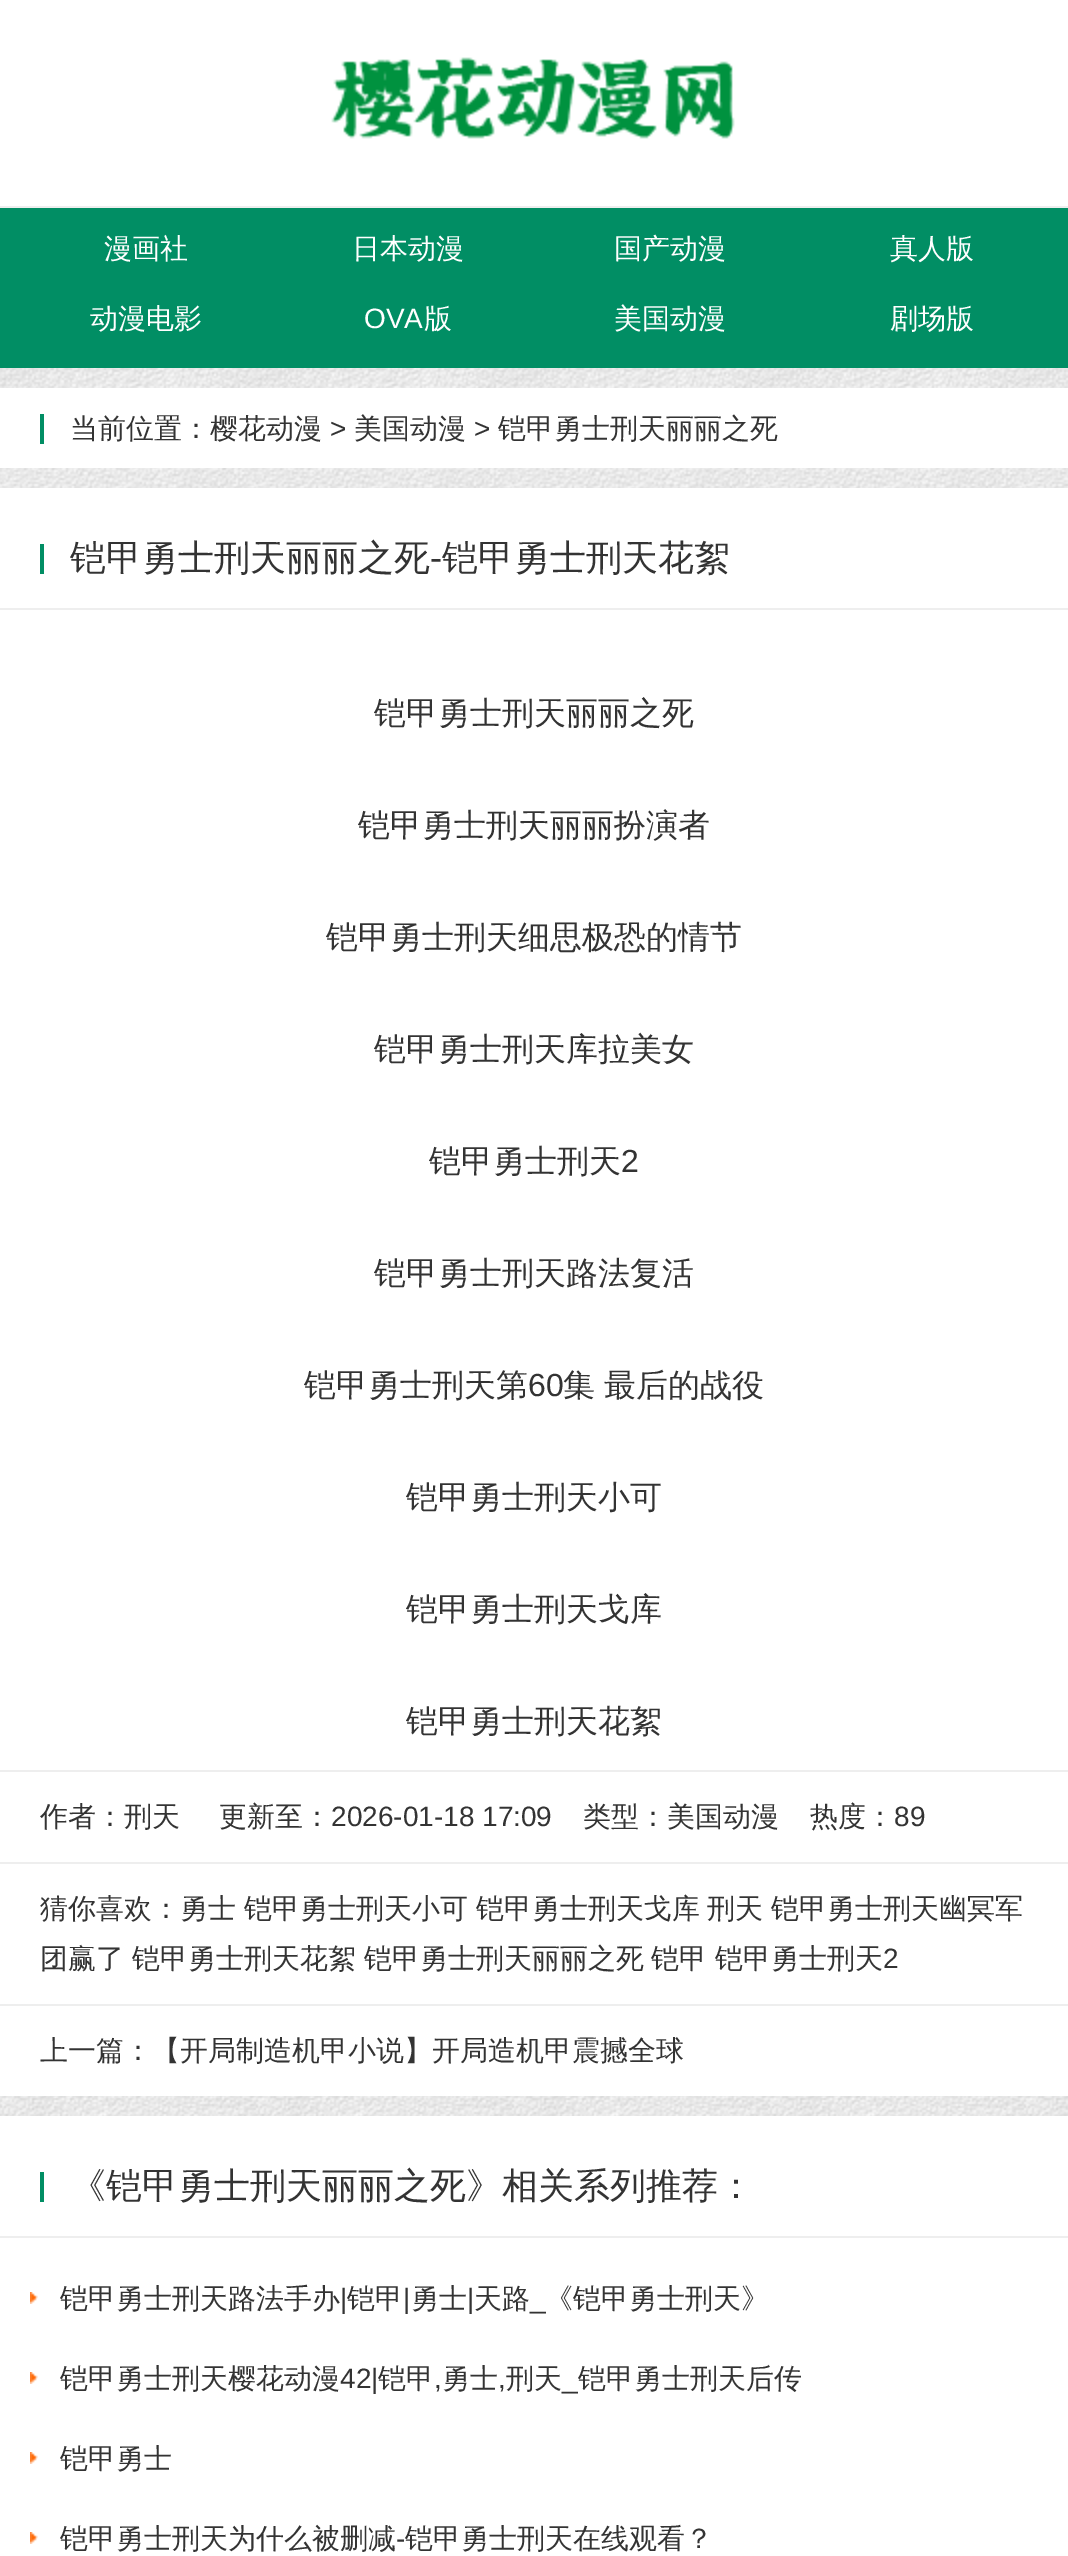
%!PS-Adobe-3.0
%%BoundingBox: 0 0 1068 2556
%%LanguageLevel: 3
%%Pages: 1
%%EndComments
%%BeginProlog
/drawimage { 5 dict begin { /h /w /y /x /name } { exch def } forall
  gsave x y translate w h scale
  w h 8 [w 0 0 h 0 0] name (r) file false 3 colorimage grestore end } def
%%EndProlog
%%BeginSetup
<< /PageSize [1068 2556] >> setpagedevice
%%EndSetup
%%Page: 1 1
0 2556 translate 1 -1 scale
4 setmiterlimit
1 setgray
0 0 1068 2556 rectfill
(images/1.raw) 0 368 1068 1748 drawimage
0.933 setgray
0 206 1068 2 rectfill
(images/2.raw) 331 57 404 82 drawimage
0.004 0.557 0.392 setrgbcolor
0 208 1068 160 rectfill
1 setgray
0 388 1068 80 rectfill
0.004 0.557 0.392 setrgbcolor
40 414 4 30 rectfill
1 setgray
0 488 1068 1608 rectfill
0.933 setgray
0 608 1068 2 rectfill
0.004 0.557 0.392 setrgbcolor
40 544 4 30 rectfill
0.933 setgray
0 1770 1068 2 rectfill
0 1862 1068 2 rectfill
0 2004 1068 2 rectfill
0 2236 1068 2 rectfill
0.004 0.557 0.392 setrgbcolor
40 2172 4 30 rectfill
(images/3.raw) 30 2292 8 12 drawimage
(images/3.raw) 30 2372 8 12 drawimage
(images/3.raw) 30 2452 8 12 drawimage
(images/3.raw) 30 2532 8 12 drawimage
/WenQuanYiZenHei-Medium [28 0 0 -28 0 0] selectfont
1 setgray
104 258 moveto (漫画社) show
352 258 moveto (日本动漫) show
614 258 moveto (国产动漫) show
890 258 moveto (真人版) show
90 328 moveto (动漫电影) show
/LiberationSans-Regular [28 0 0 -28 0 0] selectfont
364 328 moveto (OVA) show
/WenQuanYiZenHei-Medium [28 0 0 -28 0 0] selectfont
424 328 moveto (版) show
614 328 moveto (美国动漫) show
890 328 moveto (剧场版) show
0.2 setgray
70 438 moveto (当前位置：樱花动漫) show
/LiberationSans-Regular [28 0 0 -28 0 0] selectfont
330 438 moveto (>) show
/WenQuanYiZenHei-Medium [28 0 0 -28 0 0] selectfont
354 438 moveto (美国动漫) show
/LiberationSans-Regular [28 0 0 -28 0 0] selectfont
474 438 moveto (>) show
/WenQuanYiZenHei-Medium [28 0 0 -28 0 0] selectfont
498 438 moveto (铠甲勇士刑天丽丽之死) show
/WenQuanYiZenHei-Medium [36 0 0 -36 0 0] selectfont
70 570 moveto (铠甲勇士刑天丽丽之死) show
/LiberationSans-Regular [36 0 0 -36 0 0] selectfont
430 570 moveto (-) show
/WenQuanYiZenHei-Medium [36 0 0 -36 0 0] selectfont
442 570 moveto (铠甲勇士刑天花絮) show
/WenQuanYiZenHei-Medium [32 0 0 -32 0 0] selectfont
374 724 moveto (铠甲勇士刑天丽丽之死) show
358 836 moveto (铠甲勇士刑天丽丽扮演者) show
326 948 moveto (铠甲勇士刑天细思极恐的情节) show
374 1060 moveto (铠甲勇士刑天库拉美女) show
429 1172 moveto (铠甲勇士刑天) show
/LiberationSans-Regular [32 0 0 -32 0 0] selectfont
621 1172 moveto (2) show
/WenQuanYiZenHei-Medium [32 0 0 -32 0 0] selectfont
374 1284 moveto (铠甲勇士刑天路法复活) show
304 1396 moveto (铠甲勇士刑天第) show
/LiberationSans-Regular [32 0 0 -32 0 0] selectfont
528 1396 moveto (60) show
/WenQuanYiZenHei-Medium [32 0 0 -32 0 0] selectfont
563 1396 moveto -1 0 32 (集 最后的战役) widthshow
406 1508 moveto (铠甲勇士刑天小可) show
406 1620 moveto (铠甲勇士刑天戈库) show
406 1732 moveto (铠甲勇士刑天花絮) show
/WenQuanYiZenHei-Medium [28 0 0 -28 0 0] selectfont
40 1826 moveto (作者：刑天) show
219 1826 moveto (更新至：) show
/LiberationSans-Regular [28 0 0 -28 0 0] selectfont
331 1826 moveto (2026-01-18 17:09) show
/WenQuanYiZenHei-Medium [28 0 0 -28 0 0] selectfont
583 1826 moveto (类型：美国动漫) show
810 1826 moveto (热度：) show
/LiberationSans-Regular [28 0 0 -28 0 0] selectfont
894 1826 moveto (89) show
/WenQuanYiZenHei-Medium [28 0 0 -28 0 0] selectfont
40 1918 moveto (猜你喜欢：勇士) show
244 1918 moveto (铠甲勇士刑天小可) show
476 1918 moveto (铠甲勇士刑天戈库) show
707 1918 moveto (刑天) show
771 1918 moveto (铠甲勇士刑天幽冥军) show
40 1968 moveto (团赢了) show
132 1968 moveto (铠甲勇士刑天花絮) show
364 1968 moveto (铠甲勇士刑天丽丽之死) show
651 1968 moveto (铠甲) show
715 1968 moveto (铠甲勇士刑天) show
/LiberationSans-Regular [28 0 0 -28 0 0] selectfont
883 1968 moveto (2) show
/WenQuanYiZenHei-Medium [28 0 0 -28 0 0] selectfont
40 2060 moveto (上一篇：【开局制造机甲小说】开局造机甲震撼全球) show
/WenQuanYiZenHei-Medium [36 0 0 -36 0 0] selectfont
70 2198 moveto (《铠甲勇士刑天丽丽之死》相关系列推荐：) show
/WenQuanYiZenHei-Medium [28 0 0 -28 0 0] selectfont
60 2308 moveto (铠甲勇士刑天路法手办) show
/LiberationSans-Regular [28 0 0 -28 0 0] selectfont
340 2308 moveto (|) show
/WenQuanYiZenHei-Medium [28 0 0 -28 0 0] selectfont
347 2308 moveto (铠甲) show
/LiberationSans-Regular [28 0 0 -28 0 0] selectfont
403 2308 moveto (|) show
/WenQuanYiZenHei-Medium [28 0 0 -28 0 0] selectfont
411 2308 moveto (勇士) show
/LiberationSans-Regular [28 0 0 -28 0 0] selectfont
467 2308 moveto (|) show
/WenQuanYiZenHei-Medium [28 0 0 -28 0 0] selectfont
474 2308 moveto (天路) show
/LiberationSans-Regular [28 0 0 -28 0 0] selectfont
530 2308 moveto (_) show
/WenQuanYiZenHei-Medium [28 0 0 -28 0 0] selectfont
545 2308 moveto (《铠甲勇士刑天》) show
60 2388 moveto (铠甲勇士刑天樱花动漫) show
/LiberationSans-Regular [28 0 0 -28 0 0] selectfont
340 2388 moveto (42|) show
/WenQuanYiZenHei-Medium [28 0 0 -28 0 0] selectfont
378 2388 moveto (铠甲) show
/LiberationSans-Regular [28 0 0 -28 0 0] selectfont
434 2388 moveto (,) show
/WenQuanYiZenHei-Medium [28 0 0 -28 0 0] selectfont
442 2388 moveto (勇士) show
/LiberationSans-Regular [28 0 0 -28 0 0] selectfont
498 2388 moveto (,) show
/WenQuanYiZenHei-Medium [28 0 0 -28 0 0] selectfont
506 2388 moveto (刑天) show
/LiberationSans-Regular [28 0 0 -28 0 0] selectfont
562 2388 moveto (_) show
/WenQuanYiZenHei-Medium [28 0 0 -28 0 0] selectfont
578 2388 moveto (铠甲勇士刑天后传) show
60 2468 moveto (铠甲勇士) show
60 2548 moveto (铠甲勇士刑天为什么被删减) show
/LiberationSans-Regular [28 0 0 -28 0 0] selectfont
396 2548 moveto (-) show
/WenQuanYiZenHei-Medium [28 0 0 -28 0 0] selectfont
405 2548 moveto (铠甲勇士刑天在线观看？) show
showpage
%%EOF
